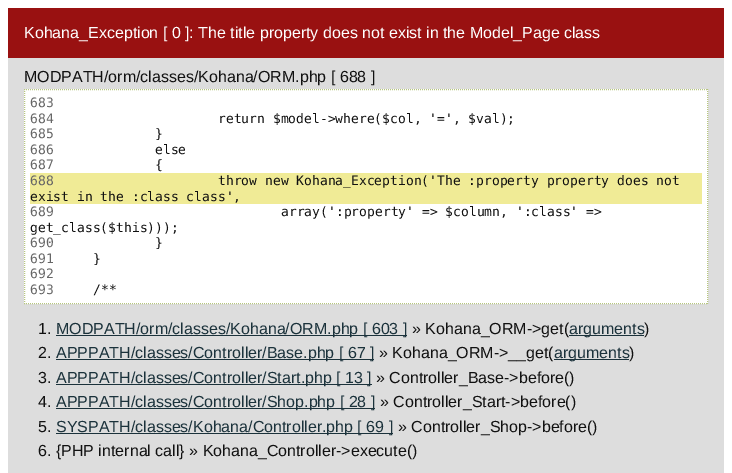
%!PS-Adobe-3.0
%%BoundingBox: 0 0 732 473
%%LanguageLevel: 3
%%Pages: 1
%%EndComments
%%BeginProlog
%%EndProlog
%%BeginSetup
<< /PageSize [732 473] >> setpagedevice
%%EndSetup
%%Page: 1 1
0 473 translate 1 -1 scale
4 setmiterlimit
1 setgray
0 0 732 473 rectfill
0.867 setgray
8 58 716 415 rectfill
0.6 0.067 0.067 setrgbcolor
8 8 716 50 rectfill
1 setgray
24 89 684 215 rectfill
0.718 0.776 0.502 setrgbcolor
[1 1] 0 setdash
newpath 24 89.5 moveto 708 89.5 lineto stroke
newpath 707.5 89 moveto 707.5 304 lineto stroke
newpath 24 303.5 moveto 708 303.5 lineto stroke
newpath 24.5 89 moveto 24.5 304 lineto stroke
0.941 0.922 0.588 setrgbcolor
30 173 672 31 rectfill
0.106 0.196 0.231 setrgbcolor
56 335 351 1 rectfill
569 335 75 1 rectfill
56 359 318 1 rectfill
554 359 75 1 rectfill
56 384 316 1 rectfill
56 408 319 1 rectfill
56 433 337 1 rectfill
/LiberationSans-Regular [16 0 0 -16 0 0] selectfont
1 setgray
24 38 moveto (Kohana_Exception [ 0 ]: The title property does not exist in the Model_Page class) show
0.067 setgray
24 82 moveto (MODPATH/orm/classes/Kohana/ORM.php [ 688 ]) show
/DejaVuSansMono-Regular [13 0 0 -13 0 0] selectfont
0.4 setgray
30 107 moveto (683) show
30 123 moveto (684) show
0.067 setgray
218 123 moveto (return $model->where\($col, '=', $val\);) show
0.4 setgray
30 138 moveto (685) show
0.067 setgray
155 138 moveto (}) show
0.4 setgray
30 154 moveto (686) show
0.067 setgray
155 154 moveto (else) show
0.4 setgray
30 169 moveto (687) show
0.067 setgray
155 169 moveto ({) show
0.4 setgray
30 185 moveto (688) show
0.067 setgray
218 185 moveto (throw new Kohana_Exception\('The :property property does not) show
30 201 moveto (exist in the :class class',) show
0.4 setgray
30 216 moveto (689) show
0.067 setgray
281 216 moveto (array\(':property' => $column, ':class' =>) show
30 232 moveto (get_class\($this\)\)\);) show
0.4 setgray
30 247 moveto (690) show
0.067 setgray
155 247 moveto (}) show
0.4 setgray
30 263 moveto (691) show
0.067 setgray
93 263 moveto (}) show
0.4 setgray
30 278 moveto (692) show
30 294 moveto (693) show
0.067 setgray
93 294 moveto (/**) show
/LiberationSans-Regular [16 0 0 -16 0 0] selectfont
38 334 moveto (1.) show
0.106 0.196 0.231 setrgbcolor
56 334 moveto (MODPATH/orm/classes/Kohana/ORM.php [ 603 ]) show
0.067 setgray
412 334 moveto (» Kohana_ORM->get\() show
0.106 0.196 0.231 setrgbcolor
569 334 moveto (arguments) show
0.067 setgray
644 334 moveto (\)) show
38 358 moveto (2.) show
0.106 0.196 0.231 setrgbcolor
56 358 moveto (APPPATH/classes/Controller/Base.php [ 67 ]) show
0.067 setgray
379 358 moveto (» Kohana_ORM->__get\() show
0.106 0.196 0.231 setrgbcolor
554 358 moveto (arguments) show
0.067 setgray
629 358 moveto (\)) show
38 383 moveto (3.) show
0.106 0.196 0.231 setrgbcolor
56 383 moveto (APPPATH/classes/Controller/Start.php [ 13 ]) show
0.067 setgray
376 383 moveto (» Controller_Base->before\(\)) show
38 407 moveto (4.) show
0.106 0.196 0.231 setrgbcolor
56 407 moveto (APPPATH/classes/Controller/Shop.php [ 28 ]) show
0.067 setgray
380 407 moveto (» Controller_Start->before\(\)) show
38 432 moveto (5.) show
0.106 0.196 0.231 setrgbcolor
56 432 moveto (SYSPATH/classes/Kohana/Controller.php [ 69 ]) show
0.067 setgray
398 432 moveto (» Controller_Shop->before\(\)) show
38 456 moveto (6. {PHP internal call} » Kohana_Controller->execute\(\)) show
showpage
%%EOF
